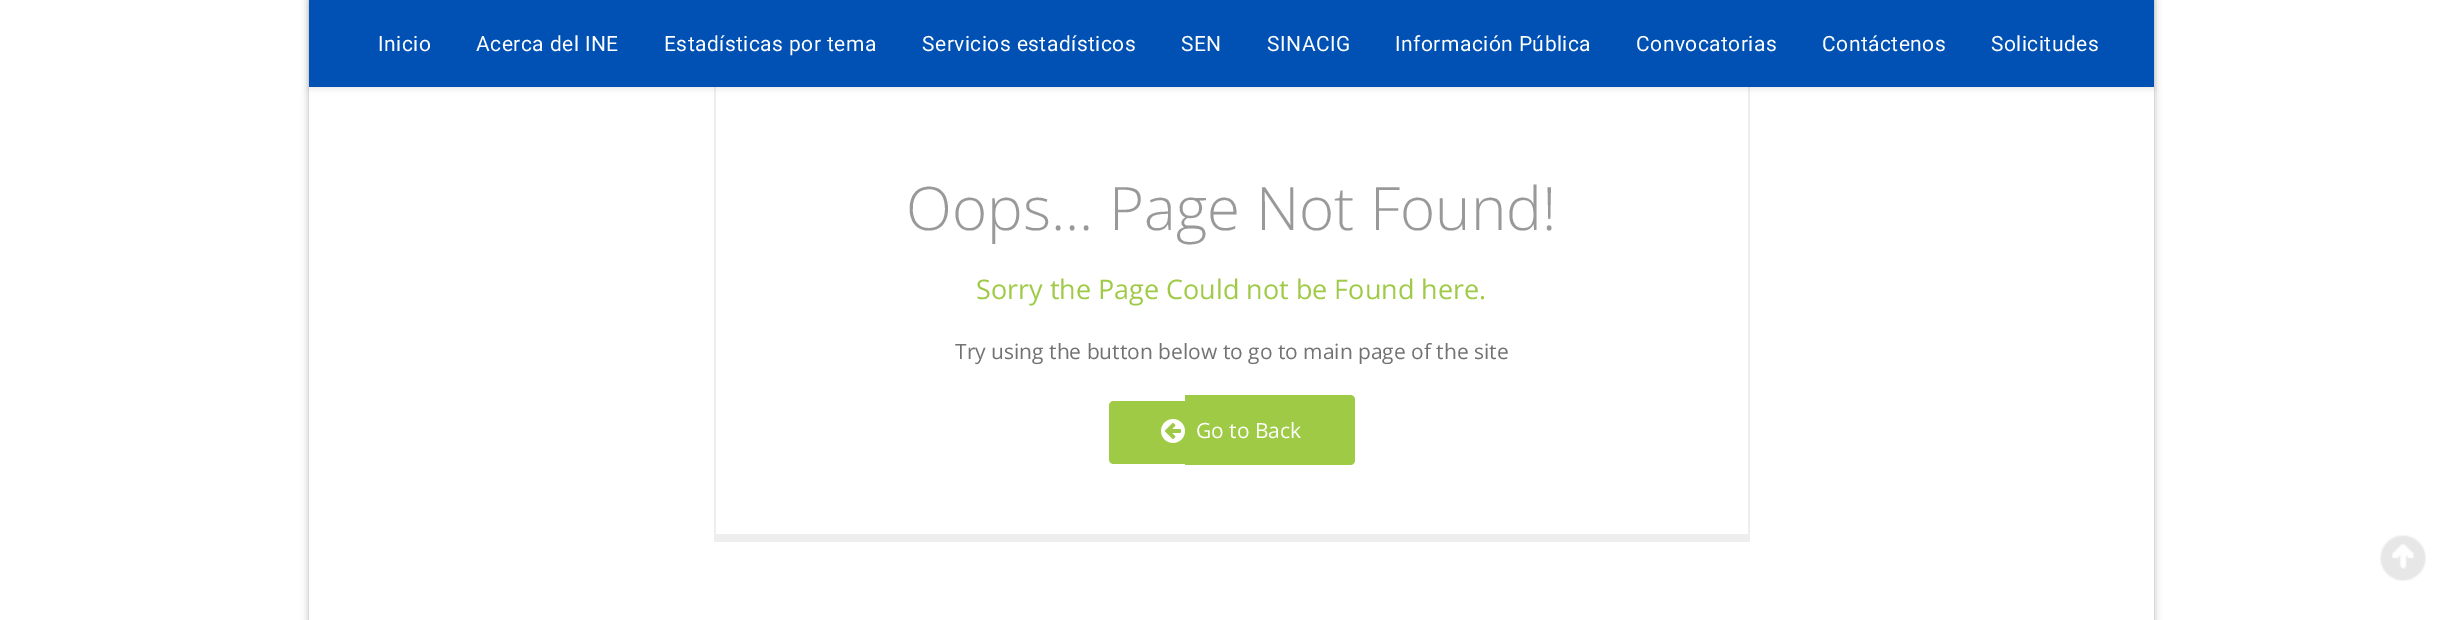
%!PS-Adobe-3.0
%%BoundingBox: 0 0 2462 620
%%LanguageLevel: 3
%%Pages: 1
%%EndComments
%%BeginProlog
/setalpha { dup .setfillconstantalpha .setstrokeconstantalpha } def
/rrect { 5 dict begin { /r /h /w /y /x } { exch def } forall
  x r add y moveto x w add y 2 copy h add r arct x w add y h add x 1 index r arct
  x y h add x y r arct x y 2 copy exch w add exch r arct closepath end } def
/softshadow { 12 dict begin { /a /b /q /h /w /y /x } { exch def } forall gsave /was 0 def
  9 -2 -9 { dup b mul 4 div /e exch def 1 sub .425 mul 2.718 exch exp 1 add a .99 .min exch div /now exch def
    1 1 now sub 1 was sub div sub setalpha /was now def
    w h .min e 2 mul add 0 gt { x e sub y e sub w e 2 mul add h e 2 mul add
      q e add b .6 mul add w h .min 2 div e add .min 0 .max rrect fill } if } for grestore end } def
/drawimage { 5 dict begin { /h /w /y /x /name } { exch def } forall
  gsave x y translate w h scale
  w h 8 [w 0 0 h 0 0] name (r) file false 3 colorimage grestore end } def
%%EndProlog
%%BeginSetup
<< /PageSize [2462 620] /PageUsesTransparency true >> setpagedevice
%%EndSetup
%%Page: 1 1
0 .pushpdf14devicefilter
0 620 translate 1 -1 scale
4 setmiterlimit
1 setgray
0 0 2462 620 rectfill
gsave
newpath 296 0 moveto 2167 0 lineto 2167 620 lineto 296 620 lineto closepath 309 -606 moveto 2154 -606 lineto 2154 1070 lineto 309 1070 lineto closepath eoclip newpath
0 setgray
309 -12 1845 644 0 4 0.3 softshadow
grestore
0.933 setgray
1748 87 2 455 rectfill
714 534 1035 8 rectfill
714 87 2 455 rectfill
0 setgray
309 2 1845 87 0 3 0.1 softshadow
0 0.318 0.702 setrgbcolor
309 0 1845 87 rectfill
0.62 0.792 0.271 setrgbcolor
newpath 1114 401 moveto 1185 401 lineto 1185 464 lineto 1114 464 lineto 1111 464 1109 462 1109 459 curveto 1109 406 lineto 1109 403 1111 401 1114 401 curveto closepath fill
newpath 1185 395 moveto 1350 395 lineto 1353 395 1355 397 1355 400 curveto 1355 460 lineto 1355 463 1353 465 1350 465 curveto 1185 465 lineto closepath fill
(images/1.raw) 1161 419 24 24 drawimage
(images/2.raw) 2380 535 46 46 drawimage
/Roboto-Regular [21 0 0 -21 0 0] selectfont
1 setgray
378 51 moveto 0.45 0 (Inicio) ashow
476 51 moveto 0.45 0 (Acerca del INE) ashow
664 51 moveto 0.45 0 (Estadísticas por tema) ashow
922 51 moveto 0.45 0 (Servicios estadísticos) ashow
1181 51 moveto 0.45 0 (SEN) ashow
1267 51 moveto 0.45 0 (SINACIG) ashow
1395 51 moveto 0.45 0 (Información Pública) ashow
1636 51 moveto 0.45 0 (Convocatorias) ashow
1822 51 moveto 0.45 0 (Contáctenos) ashow
1991 51 moveto 0.45 0 (Solicitudes) ashow
/OpenSans-Light [60 0 0 -60 0 0] selectfont
0.6 setgray
906 230 moveto (Oops... Page Not Found!) show
/OpenSans-Regular [27 0 0 -27 0 0] selectfont
0.62 0.792 0.271 setrgbcolor
976 299 moveto (Sorry the Page Could not be Found here.) show
/OpenSans-Regular [21 0 0 -21 0 0] selectfont
0.447 setgray
955 359 moveto (Try using the button below to go to main page of the site) show
1 setgray
1196 438 moveto (Go to Back) show
.poppdf14devicefilter showpage
%%EOF
